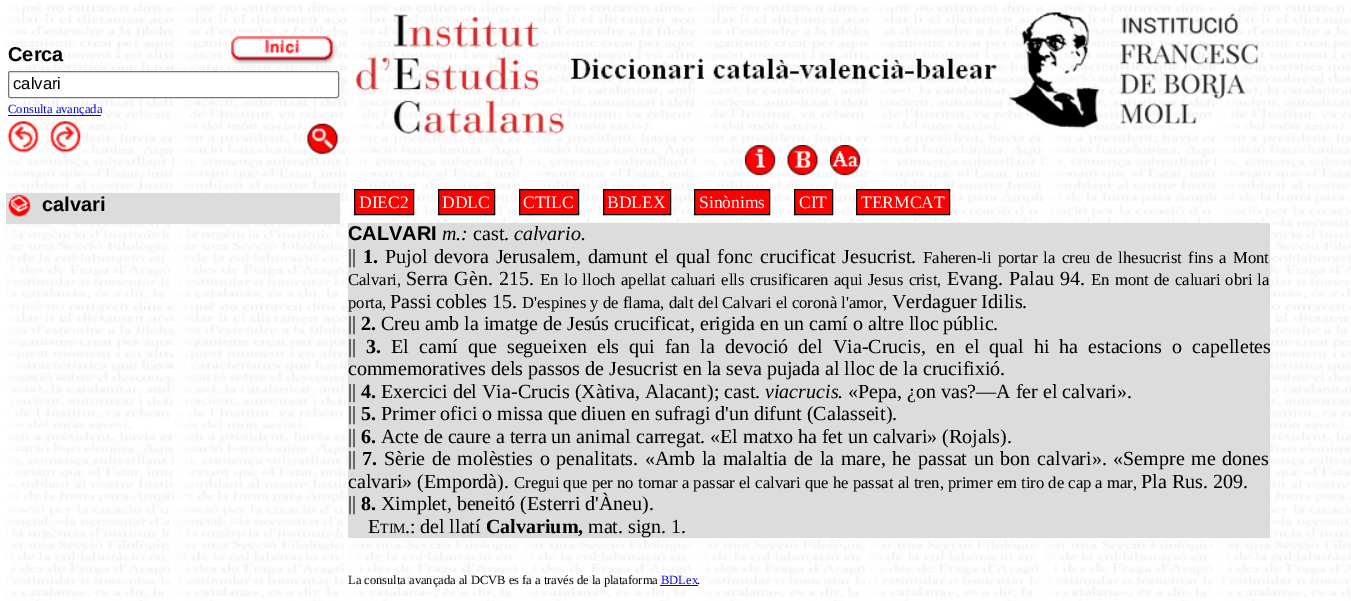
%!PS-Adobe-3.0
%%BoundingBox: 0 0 1351 601
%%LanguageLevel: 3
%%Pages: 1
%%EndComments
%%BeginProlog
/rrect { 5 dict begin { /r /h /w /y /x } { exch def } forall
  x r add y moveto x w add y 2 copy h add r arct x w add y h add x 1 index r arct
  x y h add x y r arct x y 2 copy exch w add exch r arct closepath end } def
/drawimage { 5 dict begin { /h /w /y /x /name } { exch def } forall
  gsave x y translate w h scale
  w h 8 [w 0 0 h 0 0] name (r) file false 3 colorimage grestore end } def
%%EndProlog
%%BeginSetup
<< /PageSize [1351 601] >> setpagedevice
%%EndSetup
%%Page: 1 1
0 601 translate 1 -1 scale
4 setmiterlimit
1 setgray
0 0 1351 601 rectfill
(images/1.raw) 6 2 1345 599 drawimage
6 2 1268 588 rectfill
(images/2.raw) 6 2 1268 588 drawimage
(images/3.raw) 227 32 112 34 drawimage
8.5 71.5 330 26 2 rrect gsave fill grestore
0.463 setgray
stroke
0 0 0.933 setrgbcolor
8 115 93 1 rectfill
(images/4.raw) 7 121 32 32 drawimage
(images/5.raw) 50 121 32 32 drawimage
(images/6.raw) 307 123 31 31 drawimage
(images/7.raw) 355 14 209 120 drawimage
(images/8.raw) 571 58 426 21 drawimage
(images/9.raw) 1008 12 250 117 drawimage
(images/10.raw) 745 145 31 31 drawimage
(images/11.raw) 787 145 31 31 drawimage
(images/12.raw) 830 145 31 31 drawimage
0.863 setgray
6 193 334 31 rectfill
(images/13.raw) 8 194 23 23 drawimage
1 0 0 setrgbcolor
newpath 354.5 189.5 moveto 413.5 189.5 lineto 413.5 214.5 lineto 354.5 214.5 lineto closepath gsave fill grestore
0 setgray
stroke
1 0 0 setrgbcolor
newpath 438.5 189.5 moveto 494.5 189.5 lineto 494.5 214.5 lineto 438.5 214.5 lineto closepath gsave fill grestore
0 setgray
stroke
1 0 0 setrgbcolor
newpath 519.5 189.5 moveto 578.5 189.5 lineto 578.5 214.5 lineto 519.5 214.5 lineto closepath gsave fill grestore
0 setgray
stroke
1 0 0 setrgbcolor
newpath 603.5 189.5 moveto 670.5 189.5 lineto 670.5 214.5 lineto 603.5 214.5 lineto closepath gsave fill grestore
0 setgray
stroke
1 0 0 setrgbcolor
newpath 694.5 189.5 moveto 769.5 189.5 lineto 769.5 214.5 lineto 694.5 214.5 lineto closepath gsave fill grestore
0 setgray
stroke
1 0 0 setrgbcolor
newpath 794.5 189.5 moveto 832.5 189.5 lineto 832.5 214.5 lineto 794.5 214.5 lineto closepath gsave fill grestore
0 setgray
stroke
1 0 0 setrgbcolor
newpath 856.5 189.5 moveto 949.5 189.5 lineto 949.5 214.5 lineto 856.5 214.5 lineto closepath gsave fill grestore
0 setgray
stroke
0.863 setgray
348 223 922 315 rectfill
0 0 0.933 setrgbcolor
660 585 38 1 rectfill
/LiberationSans-Bold [20 0 0 -20 0 0] selectfont
0 setgray
8 61 moveto (Cerca) show
/LiberationSans-Regular [16.65 0 0 -16.65 0 0] selectfont
13 89 moveto (calvari) show
/LiberationSerif-Regular [12.5 0 0 -12.5 0 0] selectfont
0 0 0.933 setrgbcolor
8 113 moveto (Consulta avançada) show
/LiberationSans-Bold [20 0 0 -20 0 0] selectfont
0 setgray
42 211 moveto (calvari) show
/LiberationSerif-Regular [17.5 0 0 -17.5 0 0] selectfont
1 setgray
359 208 moveto (DIEC2) show
442 208 moveto (DDLC) show
523 208 moveto (CTILC) show
607 208 moveto (BDLEX) show
699 208 moveto (Sinònims) show
799 208 moveto (CIT) show
861 208 moveto (TERMCAT) show
/LiberationSans-Bold [20 0 0 -20 0 0] selectfont
0 setgray
348 240 moveto (CALVARI) show
/LiberationSerif-Italic [20 0 0 -20 0 0] selectfont
442 240 moveto (m.:) show
/LiberationSerif-Regular [20 0 0 -20 0 0] selectfont
473 240 moveto (cast.) show
/LiberationSerif-Italic [20 0 0 -20 0 0] selectfont
514 240 moveto (calvario.) show
/LiberationSerif-Regular [20 0 0 -20 0 0] selectfont
348 263 moveto (||) show
/LiberationSerif-Bold [20 0 0 -20 0 0] selectfont
363 263 moveto (1.) show
/LiberationSerif-Regular [20 0 0 -20 0 0] selectfont
385 263 moveto 2 0 32 (Pujol devora Jerusalem, damunt el qual fonc crucificat Jesucrist.) widthshow
/LiberationSerif-Regular [16.65 0 0 -16.65 0 0] selectfont
923 263 moveto 2 0 32 (Faheren-li portar la creu de lhesucrist fins a Mont) widthshow
348 285 moveto (Calvari,) show
/LiberationSerif-Regular [20 0 0 -20 0 0] selectfont
406 285 moveto 1 0 32 (Serra Gèn. 215.) widthshow
/LiberationSerif-Regular [16.65 0 0 -16.65 0 0] selectfont
540 285 moveto 1.25 0 32 (En lo lloch apellat caluari ells crusificaren aqui Jesus crist,) widthshow
/LiberationSerif-Regular [20 0 0 -20 0 0] selectfont
947 285 moveto 1 0 32 (Evang. Palau 94.) widthshow
/LiberationSerif-Regular [16.65 0 0 -16.65 0 0] selectfont
1091 285 moveto 1 0 32 (En mont de caluari obri la) widthshow
348 308 moveto (porta,) show
/LiberationSerif-Regular [20 0 0 -20 0 0] selectfont
390 308 moveto (Passi cobles 15.) show
/LiberationSerif-Regular [16.65 0 0 -16.65 0 0] selectfont
522 308 moveto (D'espines y de flama, dalt del Calvari el coronà l'amor,) show
/LiberationSerif-Regular [20 0 0 -20 0 0] selectfont
892 308 moveto (Verdaguer Idilis.) show
348 330 moveto (||) show
/LiberationSerif-Bold [20 0 0 -20 0 0] selectfont
361 330 moveto (2.) show
/LiberationSerif-Regular [20 0 0 -20 0 0] selectfont
381 330 moveto (Creu amb la imatge de Jesús crucificat, erigida en un camí o altre lloc públic.) show
348 353 moveto (||) show
/LiberationSerif-Bold [20 0 0 -20 0 0] selectfont
366 353 moveto (3.) show
/LiberationSerif-Regular [20 0 0 -20 0 0] selectfont
391 353 moveto 5.1 0 32 (El camí que segueixen els qui fan la devoció del Via-Crucis, en el qual hi ha estacions o capelletes) widthshow
348 375 moveto (commemoratives dels passos de Jesucrist en la seva pujada al lloc de la crucifixió.) show
348 398 moveto (||) show
/LiberationSerif-Bold [20 0 0 -20 0 0] selectfont
361 398 moveto (4.) show
/LiberationSerif-Regular [20 0 0 -20 0 0] selectfont
381 398 moveto (Exercici del Via-Crucis \(Xàtiva, Alacant\); cast.) show
/LiberationSerif-Italic [20 0 0 -20 0 0] selectfont
765 398 moveto (viacrucis.) show
/LiberationSerif-Regular [20 0 0 -20 0 0] selectfont
848 398 moveto («Pepa, ¿on vas?—A fer el calvari».) show
348 420 moveto (||) show
/LiberationSerif-Bold [20 0 0 -20 0 0] selectfont
361 420 moveto (5.) show
/LiberationSerif-Regular [20 0 0 -20 0 0] selectfont
381 420 moveto (Primer ofici o missa que diuen en sufragi d'un difunt \(Calasseit\).) show
348 443 moveto (||) show
/LiberationSerif-Bold [20 0 0 -20 0 0] selectfont
361 443 moveto (6.) show
/LiberationSerif-Regular [20 0 0 -20 0 0] selectfont
381 443 moveto (Acte de caure a terra un animal carregat. «El matxo ha fet un calvari» \(Rojals\).) show
348 465 moveto (||) show
/LiberationSerif-Bold [20 0 0 -20 0 0] selectfont
362 465 moveto (7.) show
/LiberationSerif-Regular [20 0 0 -20 0 0] selectfont
384 465 moveto 1.75 0 32 (Sèrie de molèsties o penalitats. «Amb la malaltia de la mare, he passat un bon calvari». «Sempre me dones) widthshow
348 488 moveto (calvari» \(Empordà\).) show
/LiberationSerif-Regular [16.65 0 0 -16.65 0 0] selectfont
514 488 moveto (Cregui que per no tornar a passar el calvari que he passat al tren, primer em tiro de cap a mar,) show
/LiberationSerif-Regular [20 0 0 -20 0 0] selectfont
1141 488 moveto (Pla Rus. 209.) show
348 510 moveto (||) show
/LiberationSerif-Bold [20 0 0 -20 0 0] selectfont
361 510 moveto (8.) show
/LiberationSerif-Regular [20 0 0 -20 0 0] selectfont
381 510 moveto (Ximplet, beneitó \(Esterri d'Àneu\).) show
368 533 moveto (E) show
/LiberationSerif-Regular [14 0 0 -14 0 0] selectfont
380 533 moveto (TIM) show
/LiberationSerif-Regular [20 0 0 -20 0 0] selectfont
405 533 moveto (.:) show
420 533 moveto (del llatí) show
/LiberationSerif-Bold [20 0 0 -20 0 0] selectfont
486 533 moveto (Calvarium,) show
/LiberationSerif-Regular [20 0 0 -20 0 0] selectfont
588 533 moveto (mat. sign. 1.) show
/LiberationSerif-Regular [12.5 0 0 -12.5 0 0] selectfont
348 584 moveto (La consulta avançada al DCVB es fa a través de la plataforma) show
0 0 0.933 setrgbcolor
661 584 moveto (BDLex) show
0 setgray
697 584 moveto (.) show
showpage
%%EOF
